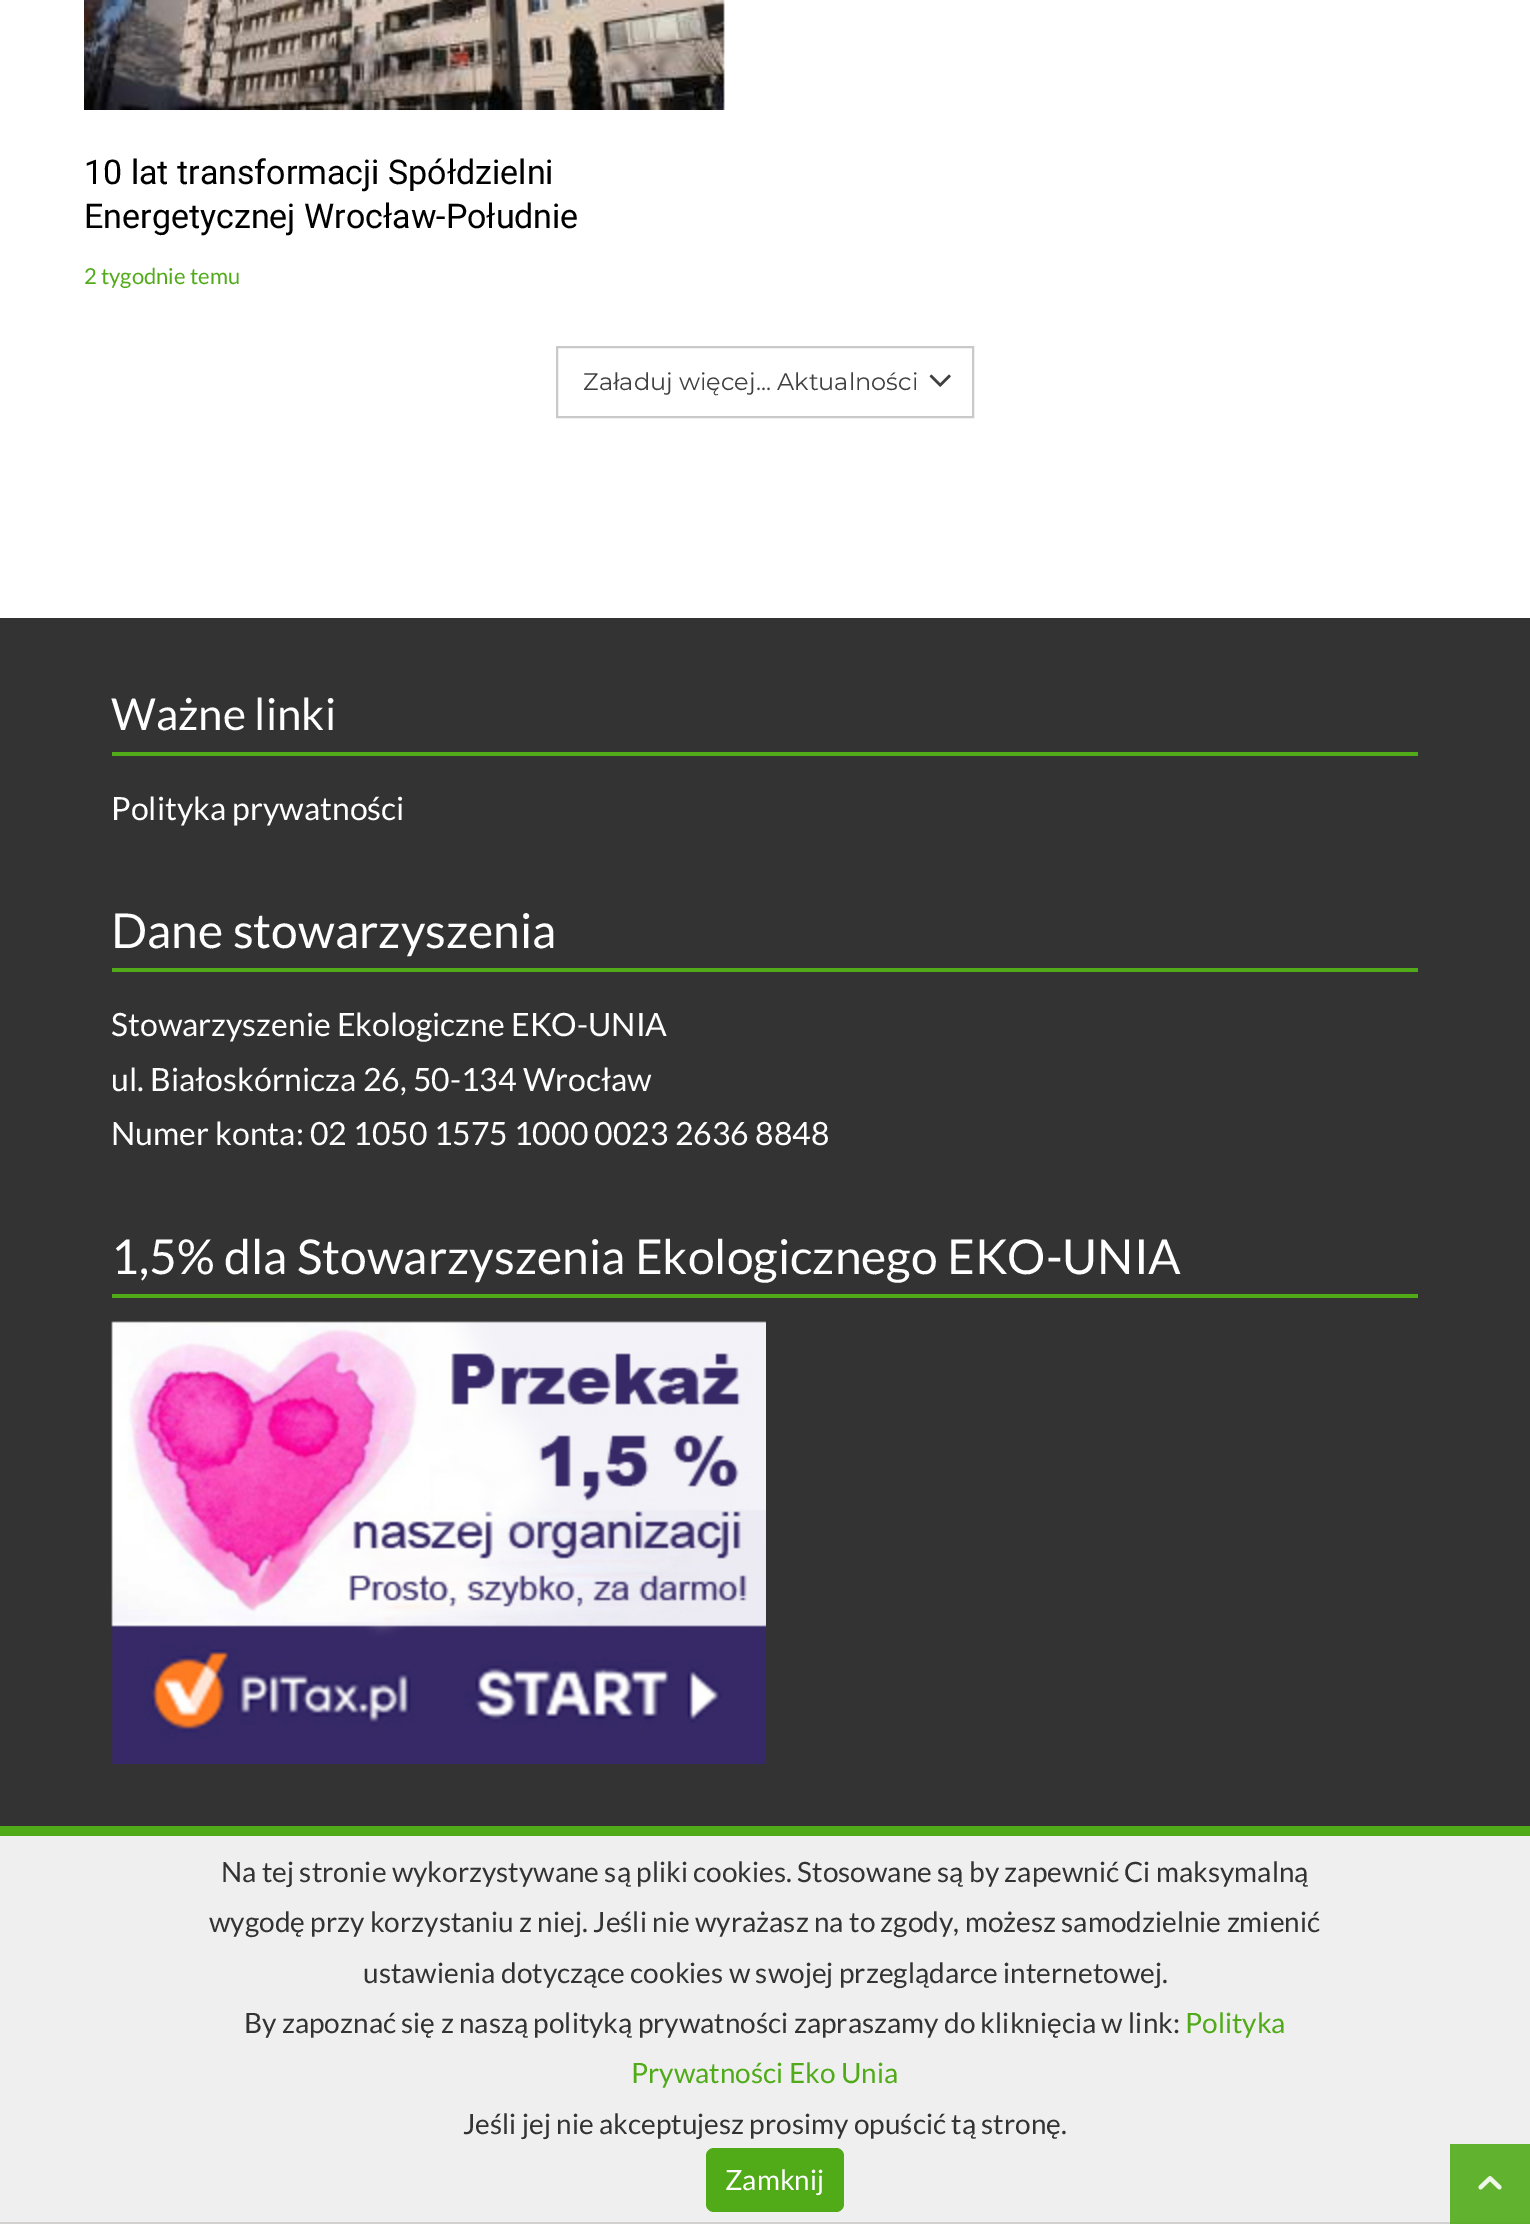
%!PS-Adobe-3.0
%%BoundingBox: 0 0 1530 2224
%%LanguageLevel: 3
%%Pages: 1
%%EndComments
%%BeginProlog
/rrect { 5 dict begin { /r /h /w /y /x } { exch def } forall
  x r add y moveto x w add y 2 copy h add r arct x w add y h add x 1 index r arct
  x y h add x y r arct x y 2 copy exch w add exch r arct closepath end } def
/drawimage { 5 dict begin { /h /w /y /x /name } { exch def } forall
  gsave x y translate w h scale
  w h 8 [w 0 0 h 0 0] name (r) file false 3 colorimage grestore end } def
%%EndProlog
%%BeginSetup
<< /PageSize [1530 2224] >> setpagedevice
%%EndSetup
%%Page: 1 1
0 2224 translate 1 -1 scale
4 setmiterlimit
1 setgray
0 0 1530 2224 rectfill
(images/1.raw) 84 0 641 110 drawimage
0.788 setgray
2 setlinewidth
557 347 416 70 rectstroke
(images/2.raw) 929 374 22 13 drawimage
0.2 setgray
0 618 1530 1208 rectfill
0.318 0.671 0.098 setrgbcolor
112 752 1306 4 rectfill
112 968 1306 4 rectfill
112 1294 1306 4 rectfill
(images/3.raw) 111 1321 655 443 drawimage
0.937 setgray
0 1836 1530 386 rectfill
0.38 0.698 0.18 setrgbcolor
1450 2144 80 78 rectfill
0.318 0.671 0.098 setrgbcolor
0 1826 1530 10 rectfill
0.827 0.816 0.816 setrgbcolor
0 2222 1450 2 rectfill
0.369 0.686 0.169 setrgbcolor
1450 2222 80 2 rectfill
0.318 0.671 0.098 setrgbcolor
706 2148 138 64 8 rrect fill
(images/4.raw) 1478 2176 24 14 drawimage
/Roboto-Regular [34 0 0 -34 0 0] selectfont
0 setgray
84 184 moveto (10 lat transformacji Spółdzielni) show
84 228 moveto (Energetycznej Wrocław-Południe) show
/Lato-Regular [22 0 0 -22 0 0] selectfont
0.318 0.671 0.098 setrgbcolor
84 284 moveto (2 tygodnie temu) show
/Montserrat-Regular [24 0 0 -24 0 0] selectfont
0.251 setgray
583 390 moveto (Załaduj więcej... Aktualności) show
/Lato-Regular [44 0 0 -44 0 0] selectfont
1 setgray
111 730 moveto (Ważne linki) show
/Lato-Regular [32 0 0 -32 0 0] selectfont
111 820 moveto (Polityka prywatności) show
/Lato-Regular [48 0 0 -48 0 0] selectfont
111 948 moveto (Dane stowarzyszenia) show
/Lato-Regular [32 0 0 -32 0 0] selectfont
111 1036 moveto (Stowarzyszenie Ekologiczne EKO-UNIA) show
111 1091 moveto (ul. Białoskórnicza 26, 50-134 Wrocław) show
111 1145 moveto (Numer konta: 02 1050 1575 1000 0023 2636 8848) show
/Lato-Regular [48 0 0 -48 0 0] selectfont
111 1274 moveto (1,5% dla Stowarzyszenia Ekologicznego EKO-UNIA) show
/Lato-Regular [28 0 0 -28 0 0] selectfont
0.2 setgray
221 1882 moveto (Na tej stronie wykorzystywane są pliki cookies. Stosowane są by zapewnić Ci maksymalną) show
209 1932 moveto (wygodę przy korzystaniu z niej. Jeśli nie wyrażasz na to zgody, możesz samodzielnie zmienić) show
363 1983 moveto (ustawienia dotyczące cookies w swojej przeglądarce internetowej.) show
244 2033 moveto (By zapoznać się z naszą polityką prywatności zapraszamy do kliknięcia w link:) show
0.318 0.671 0.098 setrgbcolor
1185 2033 moveto (Polityka) show
631 2083 moveto (Prywatności Eko Unia) show
0.2 setgray
463 2134 moveto (Jeśli jej nie akceptujesz prosimy opuścić tą stronę.) show
1 setgray
725 2190 moveto (Zamknij) show
showpage
%%EOF
